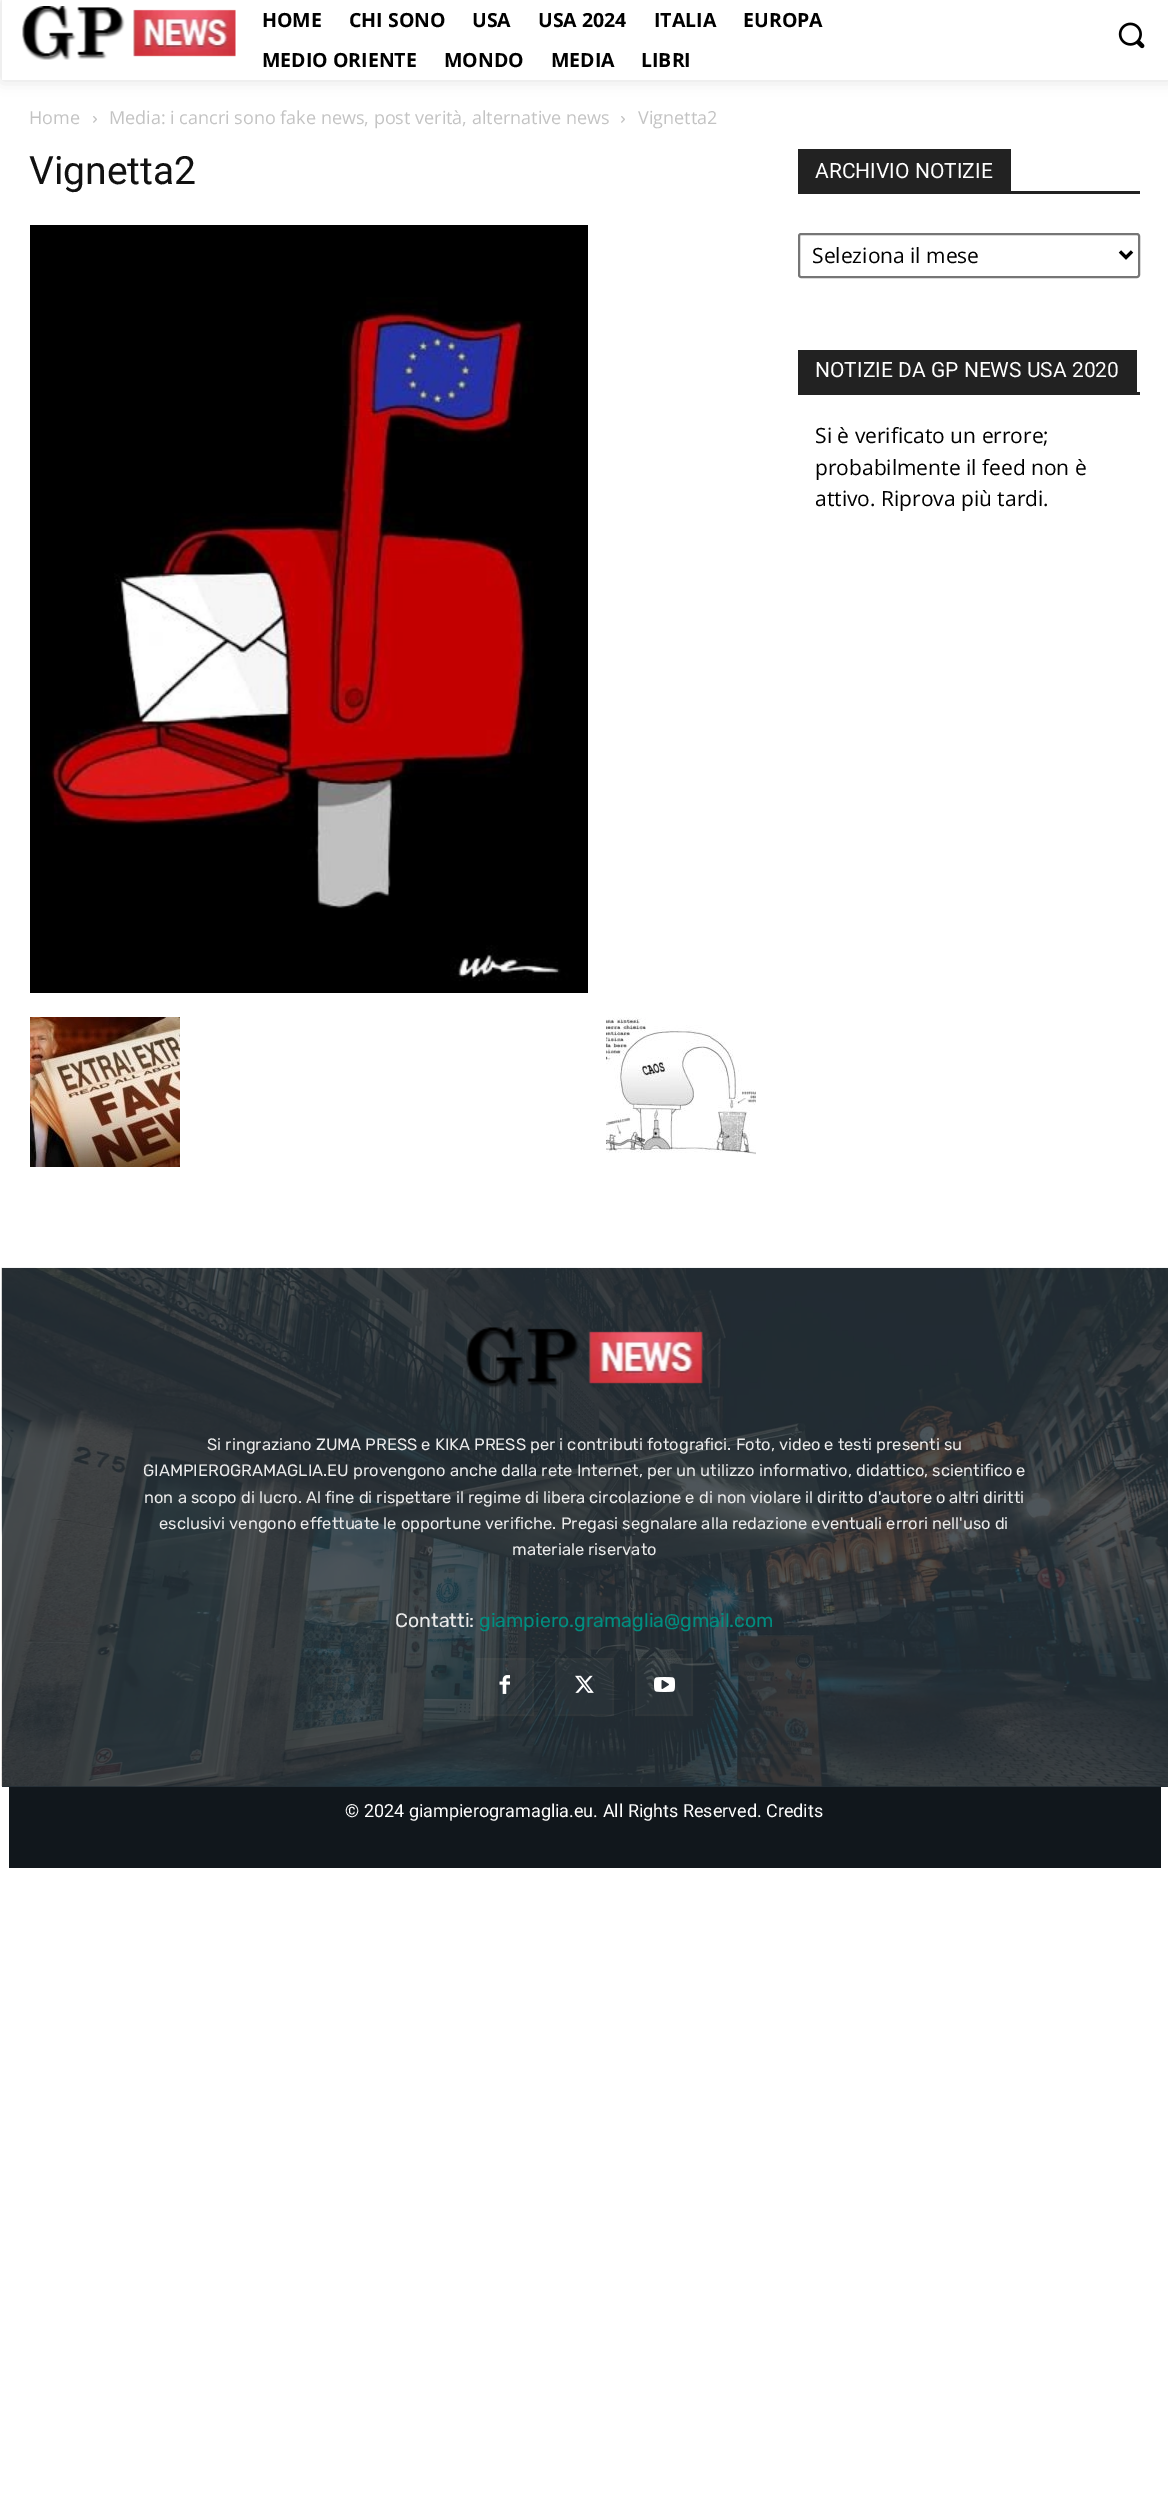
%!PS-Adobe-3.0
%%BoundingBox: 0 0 1168 2512
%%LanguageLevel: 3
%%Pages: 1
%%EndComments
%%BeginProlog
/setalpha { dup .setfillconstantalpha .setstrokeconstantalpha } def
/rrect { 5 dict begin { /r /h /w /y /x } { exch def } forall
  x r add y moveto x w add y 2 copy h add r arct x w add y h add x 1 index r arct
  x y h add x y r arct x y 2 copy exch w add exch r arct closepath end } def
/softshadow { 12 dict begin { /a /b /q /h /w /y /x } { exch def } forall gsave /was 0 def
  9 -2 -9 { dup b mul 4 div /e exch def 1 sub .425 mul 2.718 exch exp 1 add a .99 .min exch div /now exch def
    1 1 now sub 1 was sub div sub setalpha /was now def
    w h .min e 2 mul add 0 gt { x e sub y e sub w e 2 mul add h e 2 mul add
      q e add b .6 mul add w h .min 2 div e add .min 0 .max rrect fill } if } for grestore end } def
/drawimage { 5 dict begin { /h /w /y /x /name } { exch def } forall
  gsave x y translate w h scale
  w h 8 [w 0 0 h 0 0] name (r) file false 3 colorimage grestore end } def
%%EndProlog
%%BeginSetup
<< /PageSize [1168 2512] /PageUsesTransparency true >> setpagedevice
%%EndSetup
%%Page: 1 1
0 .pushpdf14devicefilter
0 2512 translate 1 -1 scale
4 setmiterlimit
1 setgray
0 0 1168 2512 rectfill
(images/1.raw) 22 6 214 54 drawimage
gsave
newpath 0 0 moveto 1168 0 lineto 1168 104 lineto 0 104 lineto closepath 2 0 moveto 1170 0 lineto 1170 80 lineto 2 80 lineto closepath eoclip newpath
0 setgray
2 0 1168 80 0 7.5 0.12 softshadow
grestore
(images/2.raw) 1118 22 27 27 drawimage
(images/3.raw) 93 116 4 7 drawimage
(images/3.raw) 621 116 4 7 drawimage
(images/4.raw) 30 225 558 768 drawimage
(images/5.raw) 30 1017 150 150 drawimage
(images/6.raw) 606 1017 150 138 drawimage
0.133 setgray
798 191 342 3 rectfill
798 149 213 42 rectfill
0.463 setgray
2 setlinewidth
799 234 340 43 2 rrect stroke
0 setgray
3 setlinewidth
newpath 1120 251.5 moveto 1126 257.5 lineto 1132 251.5 lineto stroke
0.133 setgray
798 392 342 3 rectfill
798 350 339 42 rectfill
0.137 0.176 0.208 setrgbcolor
2 1268 1166 519 rectfill
(images/7.raw) 1 1267 1167 520 drawimage
(images/8.raw) 466 1327 237 61 drawimage
0.03 setalpha
1 setgray
476 1658 58 58 rectfill
0.796 0.584 0.345 setrgbcolor
2 setlinewidth
477 1659 56 56 rectstroke
1 setalpha
(images/9.raw) 499 1675 11 19 drawimage
0.03 setalpha
1 setgray
555 1658 59 58 rectfill
0.796 0.584 0.345 setrgbcolor
556 1659 57 56 rectstroke
1 setalpha
(images/10.raw) 575 1675 19 18 drawimage
0.03 setalpha
1 setgray
635 1658 58 58 rectfill
0.796 0.584 0.345 setrgbcolor
636 1659 56 56 rectstroke
1 setalpha
(images/11.raw) 654 1677 21 15 drawimage
0.067 0.09 0.11 setrgbcolor
9 1787 1152 81 rectfill
/OpenSans-Bold [19.5 0 0 -19.5 0 0] selectfont
0 setgray
262 27 moveto (HOME) show
349 27 moveto (CHI SONO) show
472 27 moveto (USA) show
538 27 moveto (USA 2024) show
654 27 moveto (ITALIA) show
743 27 moveto (EUROPA) show
262 67 moveto (MEDIO ORIENTE) show
444 67 moveto (MONDO) show
551 67 moveto (MEDIA) show
641 67 moveto (LIBRI) show
/OpenSans-Regular [18 0 0 -18 0 0] selectfont
0.765 setgray
29 124 moveto (Home) show
109 124 moveto (Media: i cancri sono fake news, post verità, alternative news) show
638 124 moveto (Vignetta2) show
/Roboto-Regular [39 0 0 -39 0 0] selectfont
0.067 setgray
29 184 moveto (Vignetta2) show
/Roboto-Regular [21 0 0 -21 0 0] selectfont
1 setgray
815 178 moveto (ARCHIVIO NOTIZIE) show
/OpenSans-Regular [21 0 0 -21 0 0] selectfont
0 setgray
812 263 moveto (Seleziona il mese) show
/Roboto-Regular [21 0 0 -21 0 0] selectfont
1 setgray
815 377 moveto (NOTIZIE DA GP NEWS USA 2020) show
/OpenSans-Regular [21 0 0 -21 0 0] selectfont
0 setgray
815 443 moveto (Si è verificato un errore;) show
815 475 moveto (probabilmente il feed non è) show
815 506 moveto (attivo. Riprova più tardi.) show
/Rubik-Regular [16.5 0 0 -16.5 0 0] selectfont
0.918 setgray
207 1450 moveto (Si ringraziano ZUMA PRESS e KIKA PRESS per i contributi fotografici. Foto, video e testi presenti su) show
143 1476 moveto (GIAMPIEROGRAMAGLIA.EU provengono anche dalla rete Internet, per un utilizzo informativo, didattico, scientifico e) show
144 1503 moveto (non a scopo di lucro. Al fine di rispettare il regime di libera circolazione e di non violare il diritto d'autore o altri diritti) show
159 1529 moveto (esclusivi vengono effettuate le opportune verifiche. Pregasi segnalare alla redazione eventuali errori nell'uso di) show
512 1555 moveto (materiale riservato) show
/Rubik-Regular [19.5 0 0 -19.5 0 0] selectfont
395 1627 moveto (Contatti:) show
0 0.553 0.498 setrgbcolor
479 1627 moveto (giampiero.gramaglia@gmail.com) show
/Roboto-Regular [18 0 0 -18 0 0] selectfont
1 setgray
345 1817 moveto (© 2024 giampierogramaglia.eu. All Rights Reserved. Credits) show
.poppdf14devicefilter showpage
%%EOF
